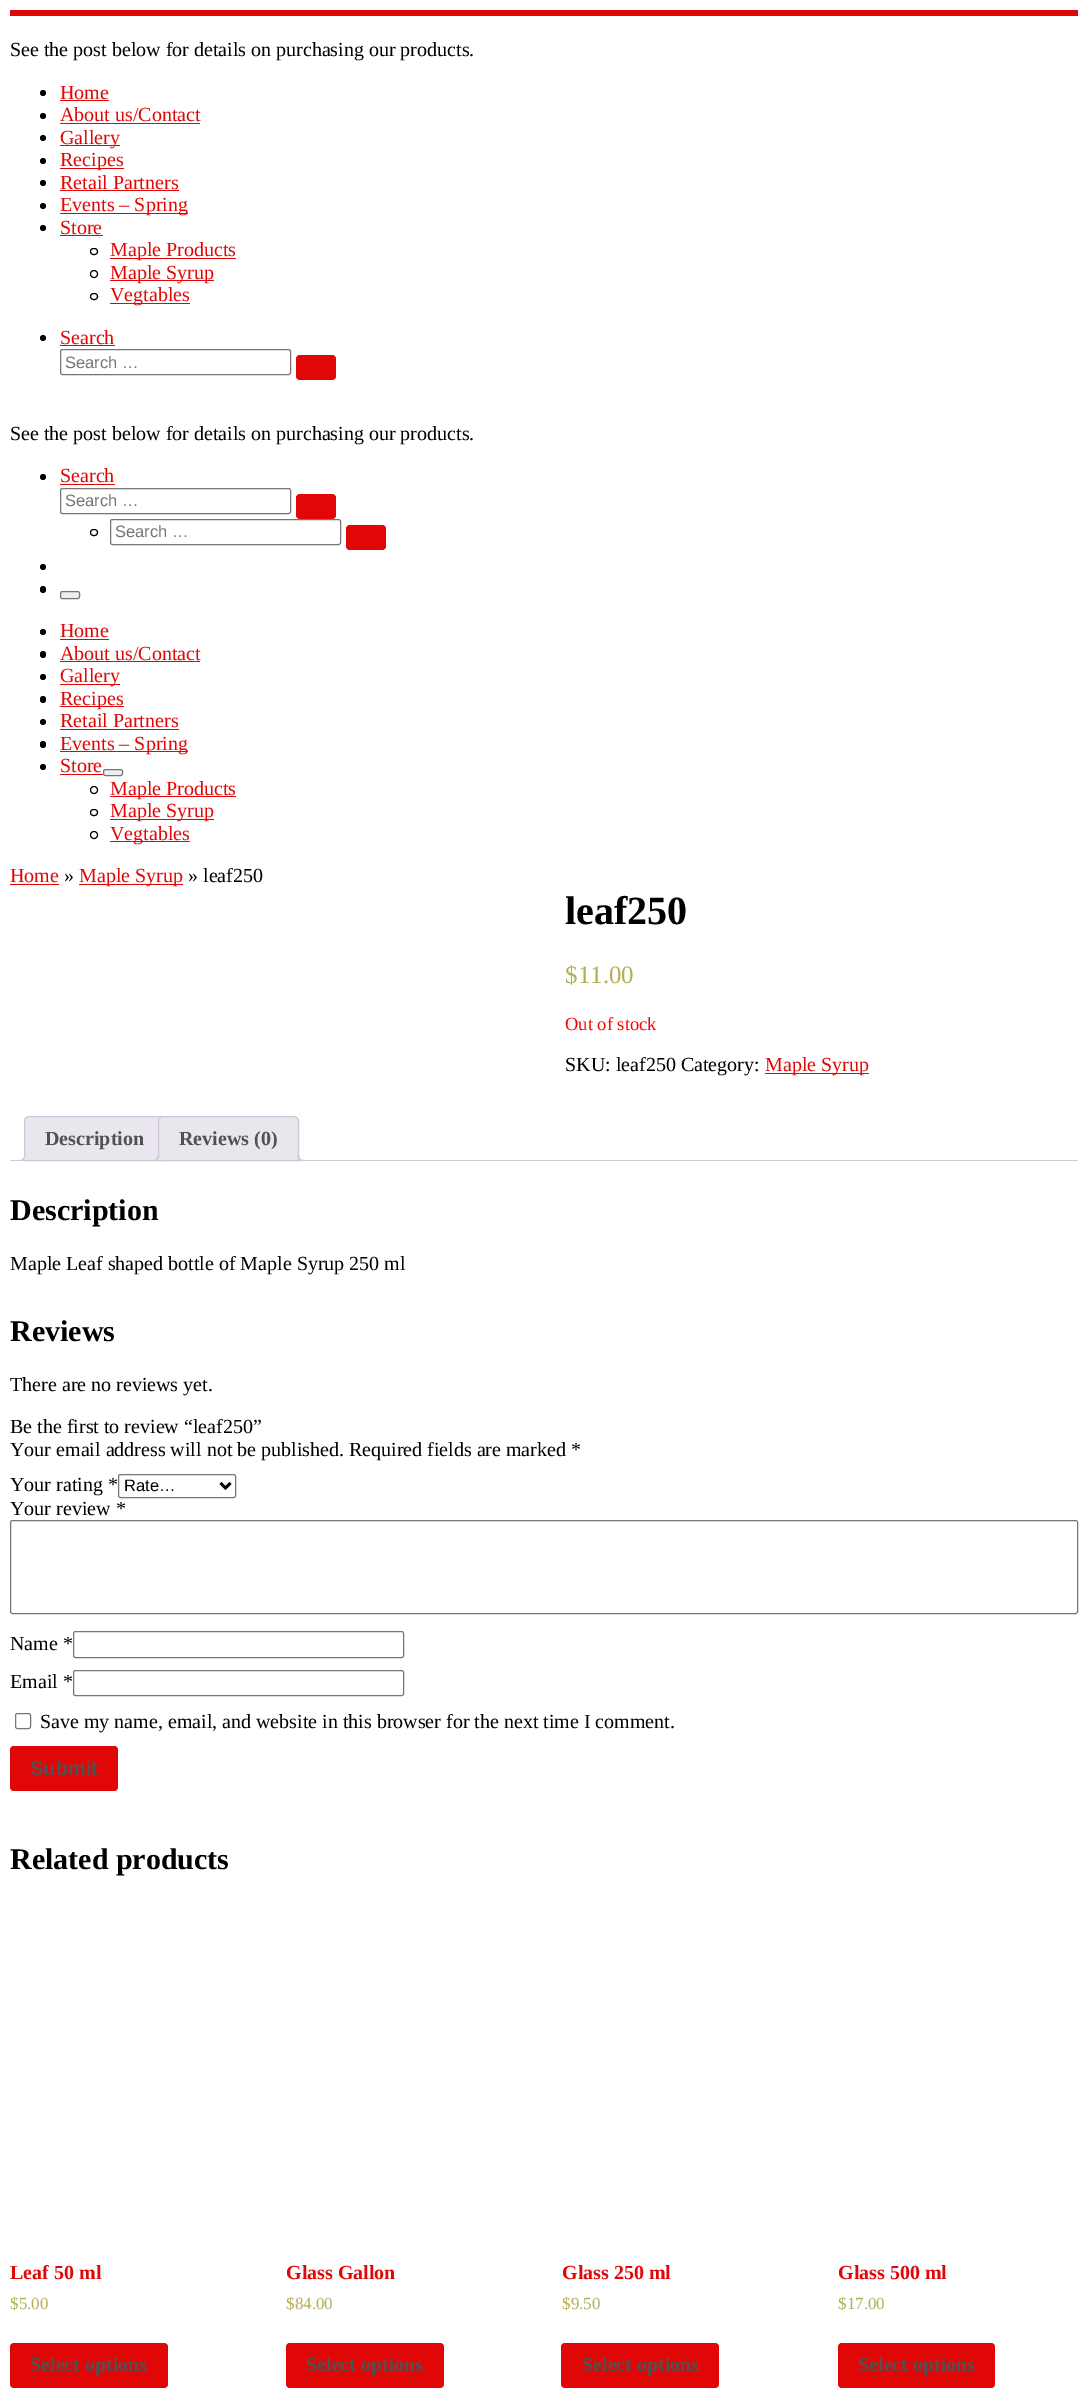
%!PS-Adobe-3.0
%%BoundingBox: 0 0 1087 2396
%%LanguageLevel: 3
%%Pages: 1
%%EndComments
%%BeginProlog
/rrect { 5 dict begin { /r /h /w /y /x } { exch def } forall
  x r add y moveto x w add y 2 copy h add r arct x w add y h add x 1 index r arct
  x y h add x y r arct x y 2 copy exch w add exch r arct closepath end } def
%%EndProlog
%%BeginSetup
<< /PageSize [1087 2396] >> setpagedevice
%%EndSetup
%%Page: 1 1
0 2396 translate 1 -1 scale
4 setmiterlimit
1 setgray
0 0 1087 2396 rectfill
0.882 0.027 0.027 setrgbcolor
10 10 1068 6 rectfill
0 setgray
newpath 43 93 3 0 360 arc closepath fill
0.882 0.027 0.027 setrgbcolor
60 100 49 1 rectfill
0 setgray
newpath 43 116 3 0 360 arc closepath fill
0.882 0.027 0.027 setrgbcolor
60 123 140 1 rectfill
0 setgray
newpath 43 138 3 0 360 arc closepath fill
0.882 0.027 0.027 setrgbcolor
60 145 60 1 rectfill
0 setgray
newpath 43 161 3 0 360 arc closepath fill
0.882 0.027 0.027 setrgbcolor
60 168 64 1 rectfill
0 setgray
newpath 43 183 3 0 360 arc closepath fill
0.882 0.027 0.027 setrgbcolor
60 190 119 1 rectfill
0 setgray
newpath 43 206 3 0 360 arc closepath fill
0.882 0.027 0.027 setrgbcolor
60 213 128 1 rectfill
0 setgray
newpath 43 228 3 0 360 arc closepath fill
0.882 0.027 0.027 setrgbcolor
60 235 43 1 rectfill
0 setgray
90.5 248.5 7 6 3 rrect stroke
0.882 0.027 0.027 setrgbcolor
110 258 126 1 rectfill
0 setgray
newpath 94 274 3.5 0 360 arc closepath stroke
0.882 0.027 0.027 setrgbcolor
110 280 104 1 rectfill
0 setgray
90.5 293.5 7 6 3 rrect stroke
0.882 0.027 0.027 setrgbcolor
110 303 80 1 rectfill
0 setgray
newpath 43 338 3 0 360 arc closepath fill
0.882 0.027 0.027 setrgbcolor
60 345 55 1 rectfill
0.463 setgray
60.5 349.5 230 25 2 rrect stroke
0.882 0.027 0.027 setrgbcolor
296 355 40 25 4 rrect fill
0 setgray
newpath 43 477 3 0 360 arc closepath fill
0.882 0.027 0.027 setrgbcolor
60 484 55 1 rectfill
0.463 setgray
60.5 488.5 230 25 2 rrect stroke
0.882 0.027 0.027 setrgbcolor
296 494 40 25 4 rrect fill
0 setgray
90.5 529.5 7 6 3 rrect stroke
0.463 setgray
110.5 519.5 230 25 2 rrect stroke
0.882 0.027 0.027 setrgbcolor
346 525 40 25 4 rrect fill
0 setgray
newpath 43 567 3 0 360 arc closepath fill
40 586 6 7 3 rrect fill
0.937 setgray
60.5 591.5 19 7 2 rrect gsave fill grestore
0.463 setgray
stroke
0 setgray
newpath 43 632 3 0 360 arc closepath fill
0.882 0.027 0.027 setrgbcolor
60 639 49 1 rectfill
0 setgray
40 651 6 7 3 rrect fill
0.882 0.027 0.027 setrgbcolor
60 661 140 1 rectfill
0 setgray
newpath 43 677 3 0 360 arc closepath fill
0.882 0.027 0.027 setrgbcolor
60 684 60 1 rectfill
0 setgray
40 696 6 7 3 rrect fill
0.882 0.027 0.027 setrgbcolor
60 706 64 1 rectfill
0 setgray
newpath 43 722 3 0 360 arc closepath fill
0.882 0.027 0.027 setrgbcolor
60 729 119 1 rectfill
0 setgray
40 741 6 7 3 rrect fill
0.882 0.027 0.027 setrgbcolor
60 751 128 1 rectfill
0 setgray
newpath 43 767 3 0 360 arc closepath fill
0.882 0.027 0.027 setrgbcolor
60 774 43 1 rectfill
0.937 setgray
103.5 769.5 19 6 2 rrect gsave fill grestore
0.463 setgray
stroke
0 setgray
newpath 94 790 3.5 0 360 arc closepath stroke
0.882 0.027 0.027 setrgbcolor
110 796 126 1 rectfill
0 setgray
90.5 809.5 7 6 3 rrect stroke
0.882 0.027 0.027 setrgbcolor
110 819 104 1 rectfill
0 setgray
newpath 94 835 3.5 0 360 arc closepath stroke
0.882 0.027 0.027 setrgbcolor
110 841 80 1 rectfill
10 884 49 1 rectfill
79 884 104 1 rectfill
765 1073 104 1 rectfill
0.914 0.902 0.929 setrgbcolor
newpath 29 1116.5 moveto 160 1116.5 lineto 162.5 1116.5 164.5 1118.5 164.5 1121 curveto 164.5 1160.5 lineto 24.5 1160.5 lineto 24.5 1121 lineto 24.5 1118.5 26.5 1116.5 29 1116.5 curveto closepath gsave fill grestore
0.812 0.784 0.847 setrgbcolor
stroke
gsave
10 1116 1068 45 rectclip
0.914 0.902 0.929 setrgbcolor
newpath 21 1161 moveto 21 1164 lineto 25.5 1164 28 1163 28 1158 curveto 24.5 1158 lineto 24 1159.5 22.5 1161 21 1161 curveto closepath fill
grestore
newpath 19 1155 moveto 25 1155 lineto 25 1159.5 23 1161 19 1161 curveto closepath 19 1155 moveto 24 1155 lineto 24 1158.5 22.5 1160 19 1160 curveto closepath eofill
0.914 0.902 0.929 setrgbcolor
newpath 163 1116.5 moveto 294 1116.5 lineto 296.5 1116.5 298.5 1118.5 298.5 1121 curveto 298.5 1160.5 lineto 158.5 1160.5 lineto 158.5 1121 lineto 158.5 1118.5 160.5 1116.5 163 1116.5 curveto closepath gsave fill grestore
0.812 0.784 0.847 setrgbcolor
stroke
gsave
10 1116 1068 45 rectclip
0.914 0.902 0.929 setrgbcolor
newpath 155 1161 moveto 155 1164 lineto 159 1164 161 1162 161 1158 curveto 158.5 1158 lineto 158 1159.5 156.5 1160.5 155 1161 curveto closepath fill
grestore
newpath 152.5 1155 moveto 159 1155 lineto 159 1159.5 157 1161 152.5 1161 curveto closepath 152.5 1155 moveto 157.5 1155 lineto 157.5 1158.5 156 1160 152.5 1160 curveto closepath eofill
gsave
10 1116 1068 45 rectclip
0.914 0.902 0.929 setrgbcolor
newpath 295 1158 moveto 295 1162 297 1164 301 1164 curveto 301 1161 lineto 299.5 1160.5 298.5 1159.5 298 1158 curveto closepath fill
grestore
newpath 297.5 1155 moveto 304 1155 lineto 304 1161 lineto 300.5 1161 297.5 1160 297.5 1156 curveto closepath 299 1155 moveto 304 1155 lineto 304 1160 lineto 301.5 1160 299 1159 299 1156 curveto closepath eofill
10 1160 1068 1 rectfill
0.463 setgray
118.5 1474.5 117 23 2 rrect stroke
0 setgray
2.5 setlinewidth
newpath 220.5 1483 moveto 225.5 1488 lineto 230.5 1483 lineto stroke
0.463 setgray
1 setlinewidth
10.5 1520.5 1067 93 2 rrect stroke
73.5 1631.5 330 26 2 rrect stroke
73.5 1670.5 330 25 2 rrect stroke
15.5 1713.5 15 15 2 rrect stroke
0.882 0.027 0.027 setrgbcolor
10 1746 108 45 4 rrect fill
10 2343 158 45 4 rrect fill
286 2343 158 45 4 rrect fill
561 2343 158 45 4 rrect fill
838 2343 157 45 4 rrect fill
/LiberationSerif-Regular [20 0 0 -20 0 0] selectfont
0 setgray
10 56 moveto (See the post below for details on purchasing our products.) show
0.882 0.027 0.027 setrgbcolor
60 99 moveto (Home) show
60 121 moveto (About us/Contact) show
60 144 moveto (Gallery) show
60 166 moveto (Recipes) show
60 189 moveto (Retail Partners) show
60 211 moveto (Events – Spring) show
60 234 moveto (Store) show
110 256 moveto (Maple Products) show
110 279 moveto (Maple Syrup) show
110 301 moveto (Vegtables) show
60 344 moveto (Search) show
/LiberationSans-Regular [16.5 0 0 -16.5 0 0] selectfont
0.459 setgray
65 368 moveto (Search …) show
/LiberationSerif-Regular [20 0 0 -20 0 0] selectfont
0 setgray
10 440 moveto (See the post below for details on purchasing our products.) show
0.882 0.027 0.027 setrgbcolor
60 482 moveto (Search) show
/LiberationSans-Regular [16.5 0 0 -16.5 0 0] selectfont
0.459 setgray
65 506 moveto (Search …) show
115 537 moveto (Search …) show
/LiberationSerif-Regular [20 0 0 -20 0 0] selectfont
0.882 0.027 0.027 setrgbcolor
60 637 moveto (Home) show
60 660 moveto (About us/Contact) show
60 682 moveto (Gallery) show
60 705 moveto (Recipes) show
60 727 moveto (Retail Partners) show
60 750 moveto (Events – Spring) show
60 772 moveto (Store) show
110 795 moveto (Maple Products) show
110 817 moveto (Maple Syrup) show
110 840 moveto (Vegtables) show
10 882 moveto (Home) show
0 setgray
64 882 moveto (») show
0.882 0.027 0.027 setrgbcolor
79 882 moveto (Maple Syrup) show
0 setgray
188 882 moveto (» leaf250) show
/LiberationSerif-Bold [40 0 0 -40 0 0] selectfont
565 924 moveto (leaf250) show
/LiberationSerif-Regular [25 0 0 -25 0 0] selectfont
0.702 0.686 0.329 setrgbcolor
565 983 moveto ($11.00) show
/LiberationSerif-Regular [18.5 0 0 -18.5 0 0] selectfont
1 0 0 setrgbcolor
565 1030 moveto (Out of stock) show
/LiberationSerif-Regular [20 0 0 -20 0 0] selectfont
0 setgray
565 1071 moveto (SKU: leaf250 Category:) show
0.882 0.027 0.027 setrgbcolor
765 1071 moveto (Maple Syrup) show
/LiberationSerif-Bold [20 0 0 -20 0 0] selectfont
0.318 setgray
45 1145 moveto (Description) show
179 1145 moveto (Reviews \(0\)) show
/LiberationSerif-Bold [30 0 0 -30 0 0] selectfont
0 setgray
10 1220 moveto (Description) show
/LiberationSerif-Regular [20 0 0 -20 0 0] selectfont
10 1270 moveto (Maple Leaf shaped bottle of Maple Syrup 250 ml) show
/LiberationSerif-Bold [30 0 0 -30 0 0] selectfont
10 1341 moveto (Reviews) show
/LiberationSerif-Regular [20 0 0 -20 0 0] selectfont
10 1391 moveto (There are no reviews yet.) show
10 1433 moveto (Be the first to review “leaf250”) show
10 1456 moveto (Your email address will not be published. Required fields are marked *) show
10 1491 moveto (Your rating *) show
/LiberationSans-Regular [16.5 0 0 -16.5 0 0] selectfont
124 1491 moveto (Rate…) show
/LiberationSerif-Regular [20 0 0 -20 0 0] selectfont
10 1515 moveto (Your review *) show
10 1650 moveto (Name *) show
10 1688 moveto (Email *) show
40 1728 moveto (Save my name, email, and website in this browser for the next time I comment.) show
/LiberationSans-Bold [20 0 0 -20 0 0] selectfont
0.318 setgray
30 1775 moveto (Submit) show
/LiberationSerif-Bold [30 0 0 -30 0 0] selectfont
0 setgray
10 1869 moveto (Related products) show
/LiberationSerif-Bold [20 0 0 -20 0 0] selectfont
0.882 0.027 0.027 setrgbcolor
10 2279 moveto (Leaf 50 ml) show
/LiberationSerif-Regular [17 0 0 -17 0 0] selectfont
0.702 0.686 0.329 setrgbcolor
10 2309 moveto ($5.00) show
/LiberationSerif-Bold [20 0 0 -20 0 0] selectfont
0.318 setgray
30 2371 moveto (Select options) show
0.882 0.027 0.027 setrgbcolor
286 2279 moveto (Glass Gallon) show
/LiberationSerif-Regular [17 0 0 -17 0 0] selectfont
0.702 0.686 0.329 setrgbcolor
286 2309 moveto ($84.00) show
/LiberationSerif-Bold [20 0 0 -20 0 0] selectfont
0.318 setgray
306 2371 moveto (Select options) show
0.882 0.027 0.027 setrgbcolor
562 2279 moveto (Glass 250 ml) show
/LiberationSerif-Regular [17 0 0 -17 0 0] selectfont
0.702 0.686 0.329 setrgbcolor
562 2309 moveto ($9.50) show
/LiberationSerif-Bold [20 0 0 -20 0 0] selectfont
0.318 setgray
582 2371 moveto (Select options) show
0.882 0.027 0.027 setrgbcolor
838 2279 moveto (Glass 500 ml) show
/LiberationSerif-Regular [17 0 0 -17 0 0] selectfont
0.702 0.686 0.329 setrgbcolor
838 2309 moveto ($17.00) show
/LiberationSerif-Bold [20 0 0 -20 0 0] selectfont
0.318 setgray
858 2371 moveto (Select options) show
showpage
%%EOF
